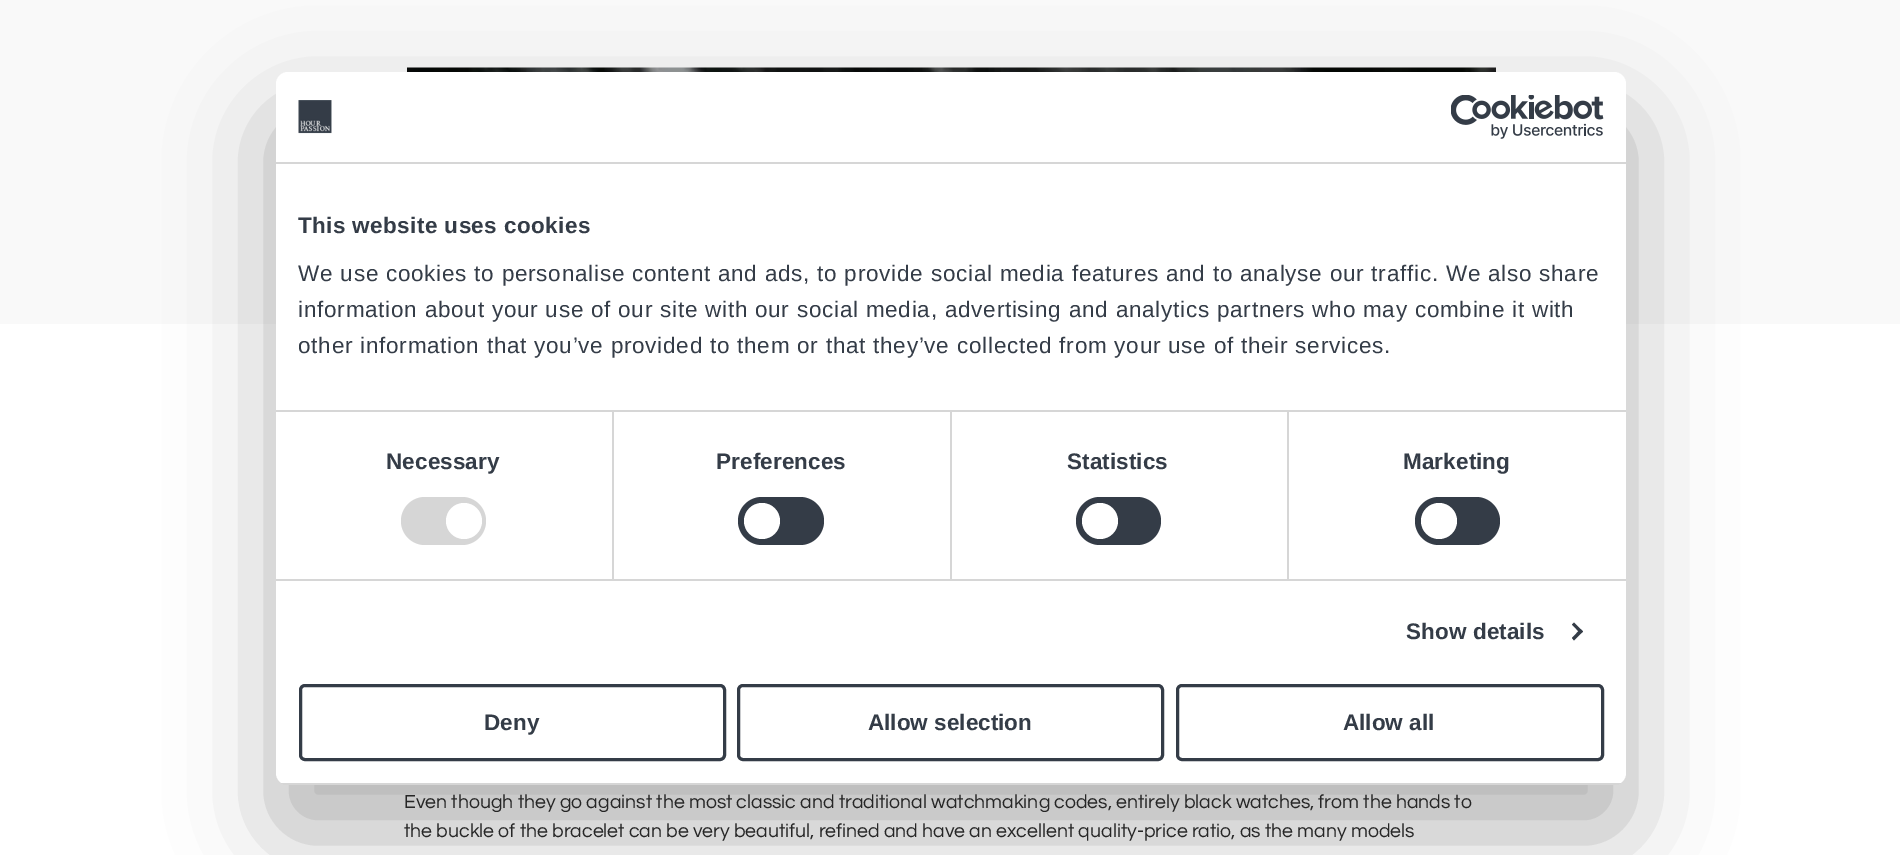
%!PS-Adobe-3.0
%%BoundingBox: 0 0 1900 855
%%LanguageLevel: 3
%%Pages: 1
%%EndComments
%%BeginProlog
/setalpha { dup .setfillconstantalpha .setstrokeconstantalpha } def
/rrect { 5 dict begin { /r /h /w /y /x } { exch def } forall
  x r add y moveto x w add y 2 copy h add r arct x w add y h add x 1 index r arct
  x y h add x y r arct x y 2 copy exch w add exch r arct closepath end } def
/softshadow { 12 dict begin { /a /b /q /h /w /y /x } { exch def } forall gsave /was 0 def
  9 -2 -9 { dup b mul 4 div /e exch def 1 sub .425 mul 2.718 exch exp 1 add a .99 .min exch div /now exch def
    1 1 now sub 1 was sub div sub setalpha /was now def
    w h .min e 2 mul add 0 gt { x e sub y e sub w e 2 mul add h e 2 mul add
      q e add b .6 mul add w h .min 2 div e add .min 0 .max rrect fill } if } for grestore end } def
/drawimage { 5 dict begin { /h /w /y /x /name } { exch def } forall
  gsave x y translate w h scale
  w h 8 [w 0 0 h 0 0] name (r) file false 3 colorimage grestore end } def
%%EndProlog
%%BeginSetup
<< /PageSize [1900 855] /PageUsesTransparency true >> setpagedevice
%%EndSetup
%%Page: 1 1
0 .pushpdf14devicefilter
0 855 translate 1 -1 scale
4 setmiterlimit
1 setgray
0 0 1900 855 rectfill
0.976 setgray
0 0 1900 324 rectfill
(images/3.raw) 407 67 1089 5 drawimage
0 setgray
276 120 1350 713 12 51 0.3 softshadow
1 setgray
276 72 1350 713 12 rrect fill
0.839 setgray
276 162 1350 2 rectfill
(images/1.raw) 298 100 34 34 drawimage
(images/2.raw) 1451 95 153 44 drawimage
612 411 2 168 rectfill
950 411 2 168 rectfill
1287 411 2 168 rectfill
276 410 1350 2 rectfill
276 579 1350 2 rectfill
401 497 85 48 24 rrect fill
1 setgray
newpath 464 521 18 0 360 arc closepath fill
0.204 0.235 0.278 setrgbcolor
738 497 86 48 24 rrect fill
1 setgray
newpath 762 521 18 0 360 arc closepath fill
0.204 0.235 0.278 setrgbcolor
1076 497 85 48 24 rrect fill
1 setgray
newpath 1100 521 18 0 360 arc closepath fill
0.204 0.235 0.278 setrgbcolor
1415 497 85 48 24 rrect fill
1 setgray
newpath 1439 521 18 0 360 arc closepath fill
0.204 0.235 0.278 setrgbcolor
newpath 1574 622.5 moveto 1583 631.5 lineto 1580.5 633.5 lineto 1572 624.5 lineto closepath fill
newpath 1580.5 629 moveto 1583 631.5 lineto 1574 640.5 lineto 1572 638 lineto closepath fill
gsave
276 72 1350 713 12 rrect clip newpath
0.839 setgray
276 783 1350 2 rectfill
grestore
3 setlinewidth
300.5 685.5 424 74 4.5 rrect stroke
738.5 685.5 424 74 4.5 rrect stroke
1177.5 685.5 425 74 4.5 rrect stroke
/LiberationSans-Bold [22.5 0 0 -22.5 0 0] selectfont
298 233 moveto 0.4 0 (This website uses cookies) ashow
/LiberationSans-Regular [22.5 0 0 -22.5 0 0] selectfont
298 281 moveto 0.75 0 (We use cookies to personalise content and ads, to provide social media features and to analyse our traffic. We also share) ashow
298 317 moveto 0.75 0 (information about your use of our site with our social media, advertising and analytics partners who may combine it with) ashow
298 353 moveto 0.75 0 (other information that you’ve provided to them or that they’ve collected from your use of their services.) ashow
/LiberationSans-Bold [22.5 0 0 -22.5 0 0] selectfont
386 469 moveto 0.1 0 (Necessary) ashow
716 469 moveto 0.1 0 (Preferences) ashow
1067 469 moveto 0.1 0 (Statistics) ashow
1403 469 moveto 0.1 0 (Marketing) ashow
1406 639 moveto 0.1 0 (Show details) ashow
484 730 moveto (Deny) show
868 730 moveto (Allow selection) show
1343 730 moveto (Allow all) show
/Questrial-Regular [19.5 0 0 -19.5 0 0] selectfont
0.149 setgray
404 808 moveto (Even though they go against the most classic and traditional watchmaking codes, entirely black watches, from the hands to) show
404 837 moveto (the buckle of the bracelet can be very beautiful, refined and have an excellent quality-price ratio, as the many models) show
.poppdf14devicefilter showpage
%%EOF
